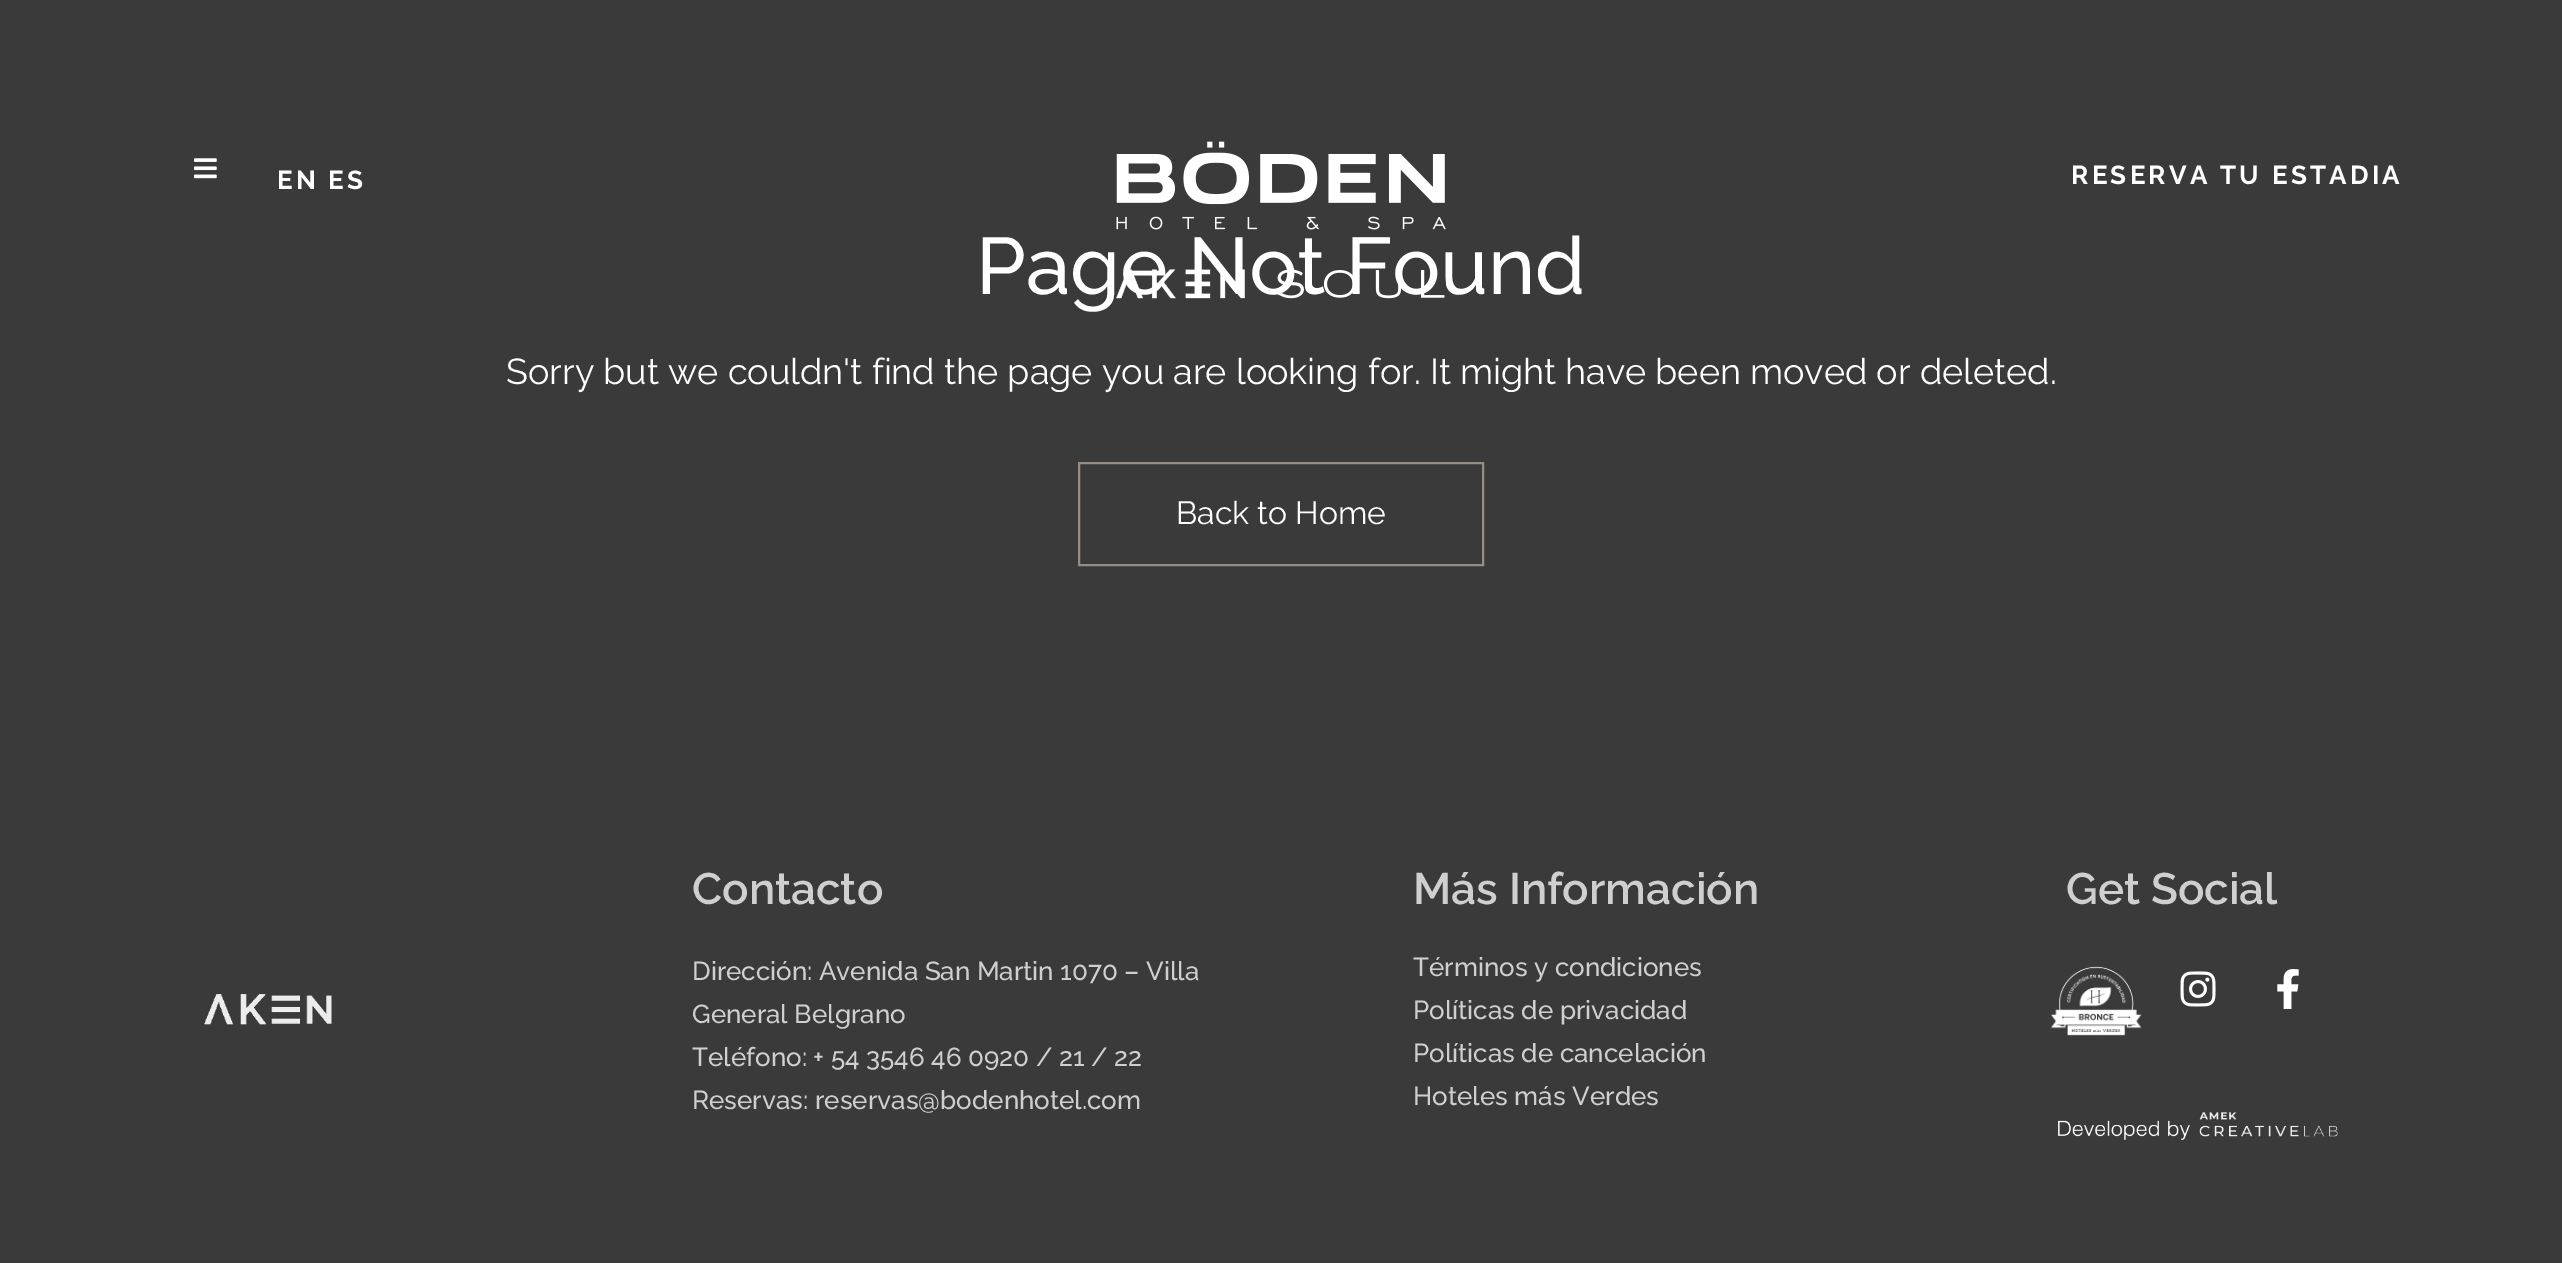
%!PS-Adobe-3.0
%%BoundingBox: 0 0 2562 1263
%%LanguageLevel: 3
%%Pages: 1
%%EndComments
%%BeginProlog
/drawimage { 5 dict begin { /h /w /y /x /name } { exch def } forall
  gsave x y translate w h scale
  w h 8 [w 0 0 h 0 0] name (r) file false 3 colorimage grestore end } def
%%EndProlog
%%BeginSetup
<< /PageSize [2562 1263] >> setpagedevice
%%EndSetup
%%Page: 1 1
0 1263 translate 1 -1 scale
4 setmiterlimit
0.227 setgray
0 0 2562 1263 rectfill
(images/1.raw) 194 158 23 21 drawimage
0.584 0.553 0.518 setrgbcolor
2 setlinewidth
1079 463 404 102 rectstroke
(images/3.raw) 204 994 128 31 drawimage
(images/4.raw) 2050 966 92 70 drawimage
(images/5.raw) 2180 971 36 36 drawimage
(images/6.raw) 2277 969 22 40 drawimage
(images/7.raw) 2058 1112 280 28 drawimage
/Raleway-Bold [26 0 0 -26 0 0] selectfont
1 setgray
277 189 moveto 3.25 0 (EN ES) ashow
2071 184 moveto 3.25 0 (RESERVA TU ESTADIA) ashow
/Raleway-Medium [80 0 0 -80 0 0] selectfont
976 294 moveto (Page Not Found) show
(images/2.raw) 1116 141 330 158 drawimage
/Raleway-Regular [36 0 0 -36 0 0] selectfont
506 384 moveto (Sorry but we couldn't find the page you are looking for. It might have been moved or deleted.) show
/Raleway-Regular [32 0 0 -32 0 0] selectfont
1176 524 moveto (Back to Home) show
/Raleway-SemiBold [44 0 0 -44 0 0] selectfont
0.812 setgray
692 904 moveto (Contacto) show
/Raleway-Medium [26 0 0 -26 0 0] selectfont
692 980 moveto (Dirección: Avenida San Martin 1070 – Villa) show
692 1023 moveto (General Belgrano) show
692 1066 moveto (Teléfono: + 54 3546 46 0920 / 21 / 22) show
692 1109 moveto (Reservas: reservas@bodenhotel.com) show
/Raleway-SemiBold [44 0 0 -44 0 0] selectfont
1413 904 moveto (Más Información) show
/Raleway-Medium [26 0 0 -26 0 0] selectfont
1413 976 moveto (Términos y condiciones) show
1413 1019 moveto (Políticas de privacidad) show
1413 1062 moveto (Políticas de cancelación) show
1413 1105 moveto (Hoteles más Verdes) show
/Raleway-SemiBold [44 0 0 -44 0 0] selectfont
2066 904 moveto (Get Social) show
showpage
%%EOF
